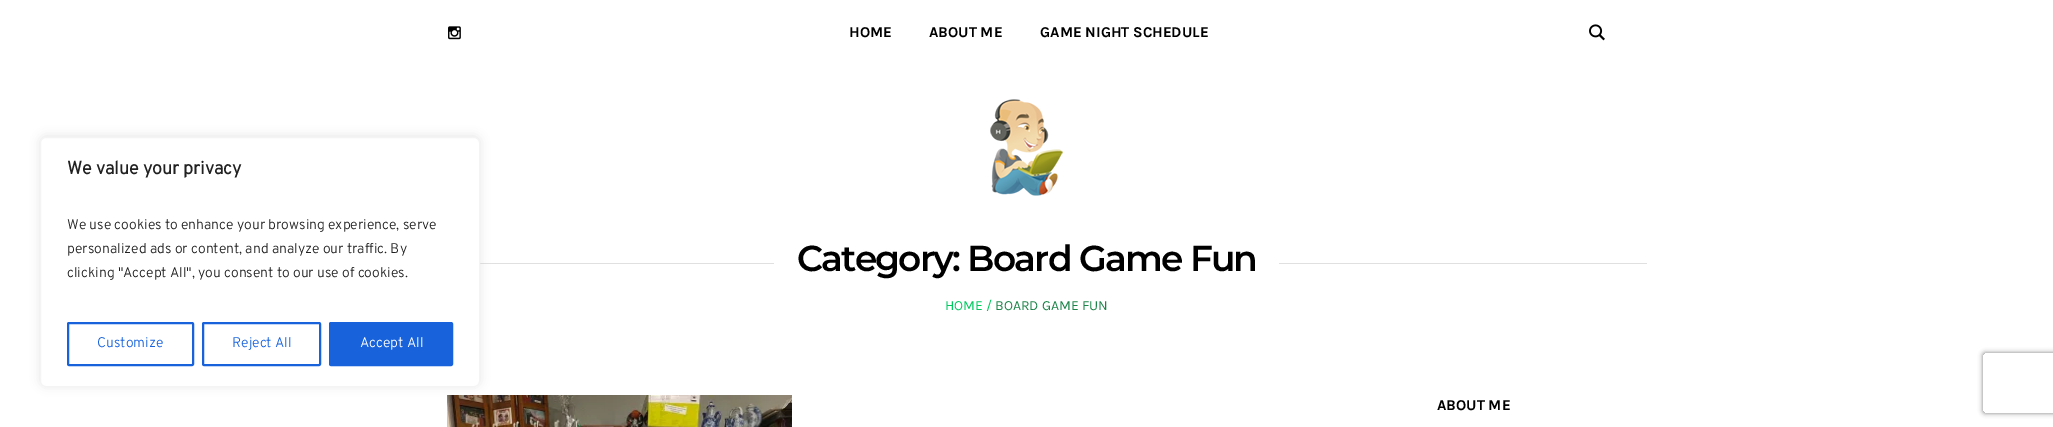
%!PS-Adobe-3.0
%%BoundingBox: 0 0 2053 427
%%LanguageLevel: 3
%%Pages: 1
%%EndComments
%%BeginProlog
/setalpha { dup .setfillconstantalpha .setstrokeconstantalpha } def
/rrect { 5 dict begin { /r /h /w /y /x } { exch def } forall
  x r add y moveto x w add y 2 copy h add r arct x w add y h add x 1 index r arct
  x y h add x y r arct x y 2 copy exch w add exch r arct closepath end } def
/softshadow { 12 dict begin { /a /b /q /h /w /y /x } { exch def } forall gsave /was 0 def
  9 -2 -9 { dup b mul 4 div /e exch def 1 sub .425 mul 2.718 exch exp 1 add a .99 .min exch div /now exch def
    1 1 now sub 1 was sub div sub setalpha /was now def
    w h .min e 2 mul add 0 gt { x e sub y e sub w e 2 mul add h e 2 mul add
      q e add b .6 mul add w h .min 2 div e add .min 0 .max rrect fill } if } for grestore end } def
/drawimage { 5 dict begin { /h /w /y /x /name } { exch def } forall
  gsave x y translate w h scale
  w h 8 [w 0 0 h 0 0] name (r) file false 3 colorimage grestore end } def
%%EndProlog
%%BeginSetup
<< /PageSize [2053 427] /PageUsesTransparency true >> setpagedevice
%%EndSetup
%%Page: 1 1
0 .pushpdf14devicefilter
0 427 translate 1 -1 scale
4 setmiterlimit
1 setgray
0 0 2053 427 rectfill
0.878 setgray
480 263 1167 1 rectfill
(images/4.raw) 447 395 345 32 drawimage
0.675 0.671 0.671 setrgbcolor
40 136 440 250 6 5 0.3 softshadow
1 setgray
40.5 137.5 439 249 5.5 rrect gsave fill grestore
0.957 setgray
stroke
0.094 0.388 0.863 setrgbcolor
2 setlinewidth
68 323 125 42 1 rrect stroke
203 323 117 42 1 rrect stroke
330 323 122 42 1 rrect gsave fill grestore
stroke
(images/1.raw) 448 26 13 14 drawimage
(images/2.raw) 1589 24 16 17 drawimage
(images/3.raw) 990 99 73 97 drawimage
1 setgray
774 263 505 1 rectfill
gsave
newpath 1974 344 moveto 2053 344 lineto 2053 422 lineto 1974 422 lineto closepath 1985 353 moveto 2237 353 lineto 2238 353 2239 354 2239 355 curveto 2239 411 lineto 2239 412 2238 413 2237 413 curveto 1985 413 lineto 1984 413 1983 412 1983 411 curveto 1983 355 lineto 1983 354 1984 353 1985 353 curveto closepath eoclip newpath
0.502 setgray
1983 353 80 60 2 2.5 1 softshadow
grestore
/Overpass-Bold [18 0 0 -18 0 0] selectfont
0.129 setgray
67 174 moveto (We value your privacy) show
/Overpass-Light [14 0 0 -14 0 0] selectfont
67 229 moveto (We use cookies to enhance your browsing experience, serve) show
67 253 moveto (personalized ads or content, and analyze our traffic. By) show
67 277 moveto (clicking "Accept All", you consent to our use of cookies.) show
0.094 0.388 0.863 setrgbcolor
97 347 moveto (Customize) show
232 347 moveto (Reject All) show
1 setgray
360 347 moveto (Accept All) show
/Karla-Bold [15 0 0 -15 0 0] selectfont
0 setgray
849 37 moveto (HOME) show
929 37 moveto (ABOUT ME) show
1040 37 moveto (GAME NIGHT SCHEDULE) show
/Montserrat-SemiBold [36 0 0 -36 0 0] selectfont
797 271 moveto -1.8 0 (Category: Board Game Fun) ashow
/Karla-Regular [14 0 0 -14 0 0] selectfont
0 0.788 0.369 setrgbcolor
945 310 moveto (HOME /) show
0.114 0.518 0.286 setrgbcolor
995 310 moveto (BOARD GAME FUN) show
/Karla-Bold [15 0 0 -15 0 0] selectfont
0 setgray
1437 410 moveto (ABOUT ME) show
.poppdf14devicefilter showpage
%%EOF
